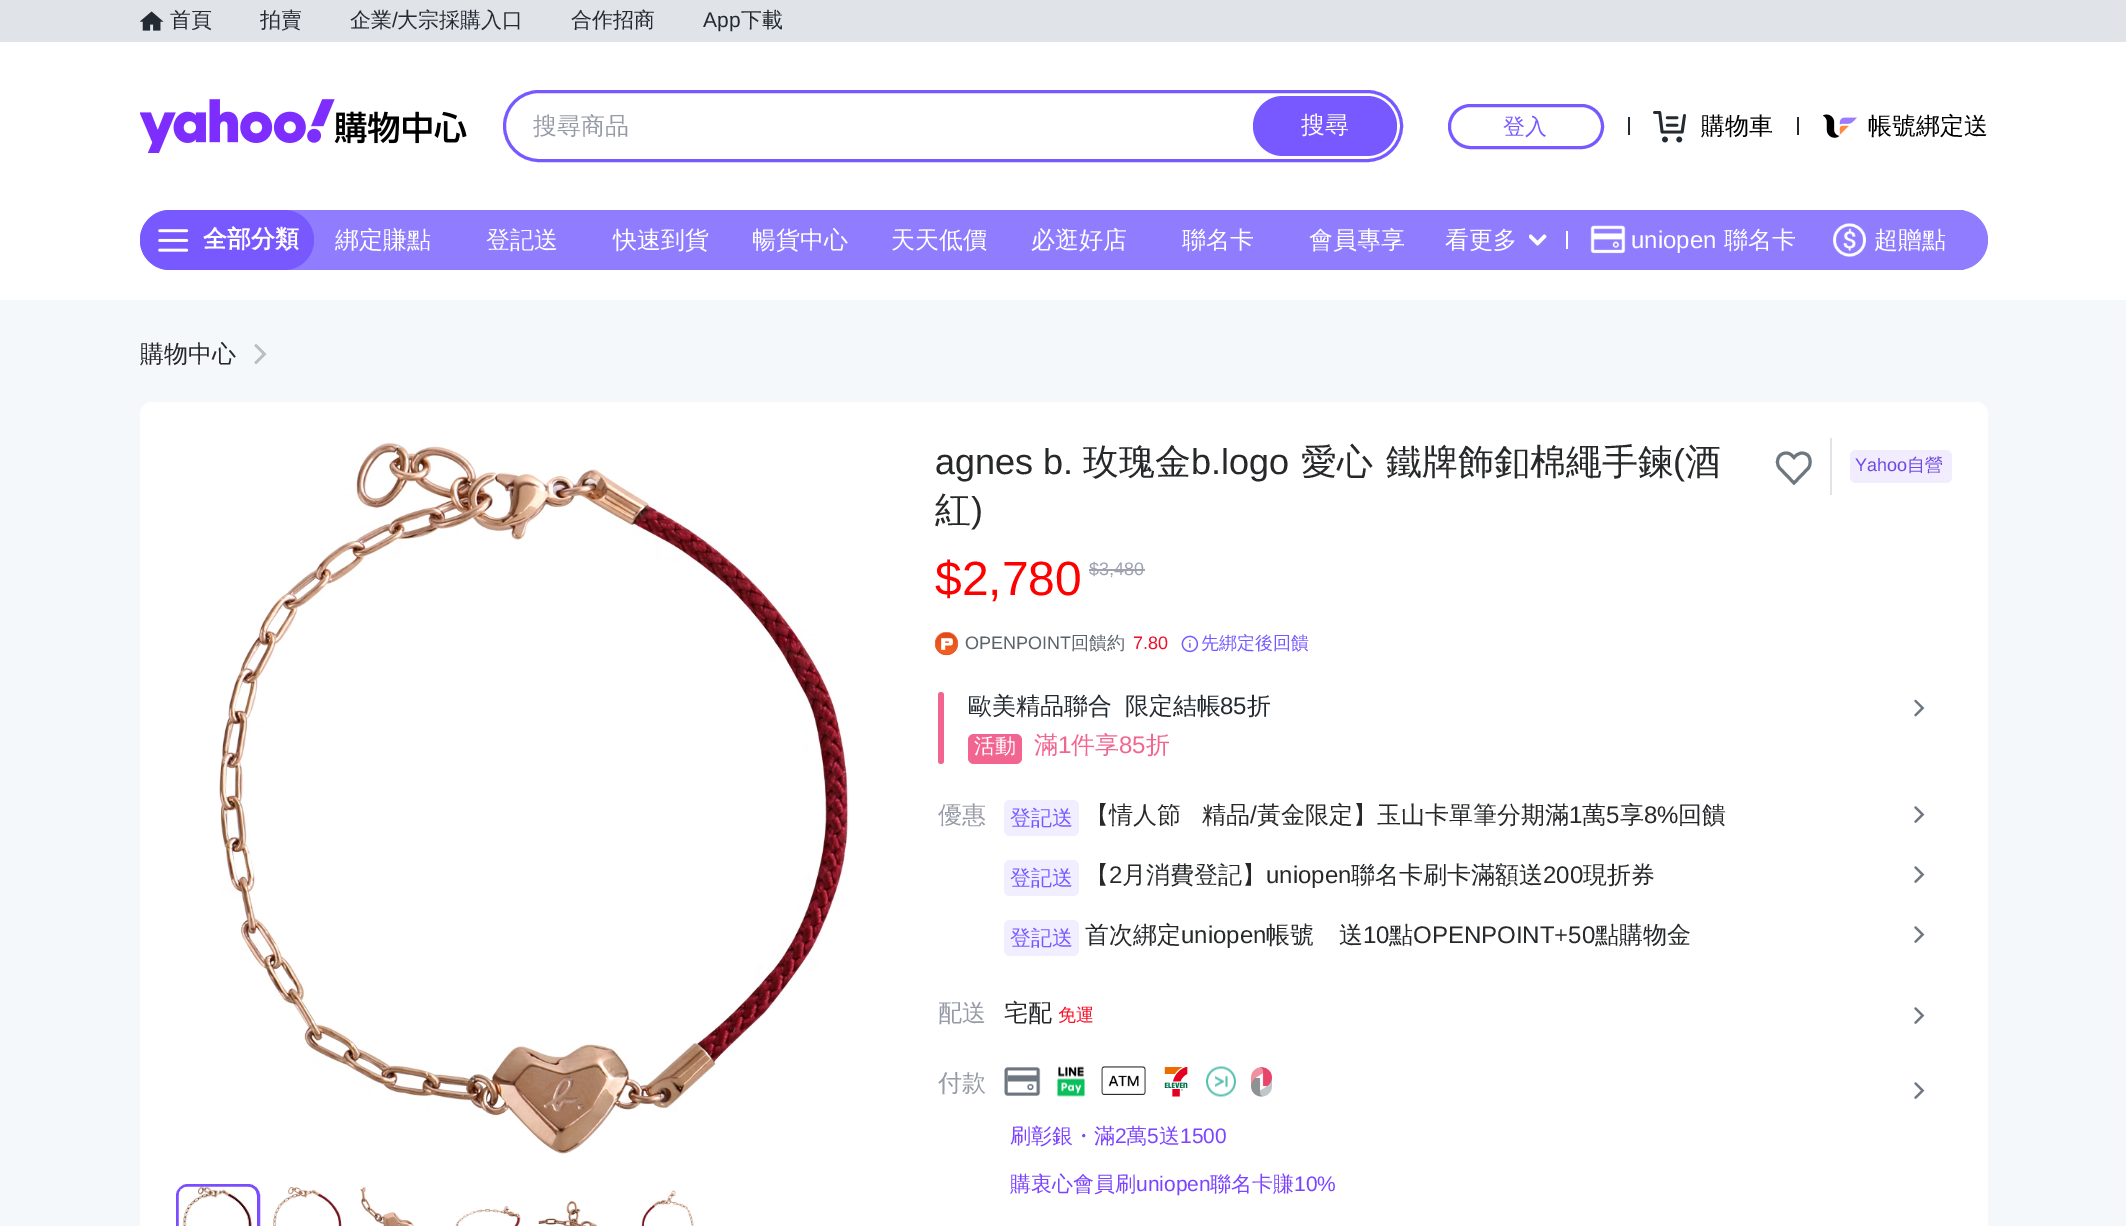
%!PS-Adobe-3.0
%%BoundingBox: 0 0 2126 1226
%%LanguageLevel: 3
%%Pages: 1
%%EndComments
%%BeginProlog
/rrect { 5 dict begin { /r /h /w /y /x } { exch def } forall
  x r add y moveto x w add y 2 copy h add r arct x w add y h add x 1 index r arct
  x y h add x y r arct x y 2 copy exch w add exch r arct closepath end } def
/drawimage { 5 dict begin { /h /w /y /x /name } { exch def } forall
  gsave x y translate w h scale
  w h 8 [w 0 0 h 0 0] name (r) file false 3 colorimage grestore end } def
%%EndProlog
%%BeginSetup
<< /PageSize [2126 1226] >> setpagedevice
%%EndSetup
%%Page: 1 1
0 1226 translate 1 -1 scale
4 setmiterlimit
1 setgray
0 0 2126 1226 rectfill
0.878 0.894 0.914 setrgbcolor
0 0 2126 42 rectfill
(images/1.raw) 140 11 24 20 drawimage
(images/2.raw) 140 99 327 54 drawimage
0.467 0.349 1 setrgbcolor
3 setlinewidth
504.5 91.5 897 69 34.5 rrect stroke
1253 96 144 60 30 rrect fill
1449.5 105.5 153 42 21 rrect stroke
0.137 0.165 0.192 setrgbcolor
1628 117 2 18 rectfill
(images/3.raw) 1653 111 33 32 drawimage
1797 117 2 18 rectfill
(images/4.raw) 1823 114 34 24 drawimage
0.565 0.486 1 setrgbcolor
140 210 1848 60 30 rrect fill
0.467 0.349 1 setrgbcolor
140 210 174 60 30 rrect fill
(images/5.raw) 158 229 31 23 drawimage
(images/6.raw) 1529 234 18 12 drawimage
1 setgray
1566 231 2 18 rectfill
(images/7.raw) 1590 225 36 29 drawimage
0.565 0.486 1 setrgbcolor
1958 210 6 60 rectfill
(images/8.raw) 1833 223 33 34 drawimage
0.961 0.973 0.98 setrgbcolor
0 300 2126 926 rectfill
(images/9.raw) 254 344 13 20 drawimage
1 setgray
140 402 1848 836 12 rrect fill
(images/10.raw) 219 442 630 712 drawimage
0.478 0.302 1 setrgbcolor
177.5 1185.5 81 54 10.5 rrect stroke
(images/11.raw) 178 1186 78 40 drawimage
(images/12.raw) 273 1186 69 40 drawimage
(images/13.raw) 360 1187 54 39 drawimage
(images/14.raw) 455 1206 66 20 drawimage
(images/15.raw) 538 1200 59 26 drawimage
(images/16.raw) 641 1190 53 36 drawimage
0.62 0.635 0.686 setrgbcolor
1089 569 56 2 rectfill
0.431 0.467 0.502 setrgbcolor
newpath 1808 455.5 moveto 1803.5 451 1797.5 453 1794 457.5 curveto 1790.5 453.5 1788.5 453 1786 453 curveto 1783.5 453 1781.5 454 1780 455.5 curveto 1776.5 459 1776.5 465 1780 468.5 curveto 1794 483 lineto 1808 468.5 lineto 1811 465 1811 459 1808 455.5 curveto stroke
0.878 0.894 0.914 setrgbcolor
1830 438 2 57 rectfill
0.945 0.929 1 setrgbcolor
1850 450 102 33 6 rrect fill
(images/17.raw) 935 632 24 24 drawimage
(images/18.raw) 1181 635 18 18 drawimage
0.949 0.396 0.569 setrgbcolor
938 692 6 72 3 rrect fill
968 734 54 30 6 rrect fill
(images/19.raw) 1914 699 11 18 drawimage
0.945 0.933 1 setrgbcolor
1004 800 75 36 6 rrect fill
(images/20.raw) 1914 806 11 17 drawimage
1004 860 75 36 6 rrect fill
(images/20.raw) 1914 866 11 17 drawimage
1004 920 75 36 6 rrect fill
(images/20.raw) 1914 926 11 17 drawimage
(images/20.raw) 1914 1007 11 17 drawimage
(images/21.raw) 1004 1067 37 29 drawimage
(images/22.raw) 1057 1066 28 31 drawimage
(images/23.raw) 1101 1066 45 29 drawimage
(images/24.raw) 1164 1067 24 30 drawimage
(images/25.raw) 1206 1066 30 31 drawimage
(images/26.raw) 1251 1067 21 30 drawimage
(images/20.raw) 1914 1082 11 17 drawimage
/WenQuanYiZenHei-Medium [21 0 0 -21 0 0] selectfont
0.137 0.165 0.192 setrgbcolor
170 27 moveto (首頁) show
260 27 moveto (拍賣) show
350 27 moveto (企業) show
/LiberationSans-Regular [21 0 0 -21 0 0] selectfont
392 27 moveto (/) show
/WenQuanYiZenHei-Medium [21 0 0 -21 0 0] selectfont
397 27 moveto (大宗採購入口) show
571 27 moveto (合作招商) show
/LiberationSans-Regular [21 0 0 -21 0 0] selectfont
703 27 moveto (App) show
/WenQuanYiZenHei-Medium [21 0 0 -21 0 0] selectfont
741 27 moveto (下載) show
/WenQuanYiZenHei-Medium [24 0 0 -24 0 0] selectfont
0.592 0.608 0.655 setrgbcolor
533 134 moveto (搜尋商品) show
1 setgray
1301 133 moveto (搜尋) show
/WenQuanYiZenHei-Medium [22 0 0 -22 0 0] selectfont
0.467 0.349 1 setrgbcolor
1503 134 moveto (登入) show
/WenQuanYiZenHei-Medium [24 0 0 -24 0 0] selectfont
0 setgray
1701 134 moveto (購物車) show
1868 134 moveto (帳號綁定送) show
/WenQuanYiZenHei-Bold [24 0 0 -24 0 0] selectfont
1 setgray
203 247 moveto (全部分類) show
/WenQuanYiZenHei-Medium [24 0 0 -24 0 0] selectfont
335 248 moveto (綁定賺點) show
486 248 moveto (登記送) show
613 248 moveto (快速到貨) show
752 248 moveto (暢貨中心) show
891 248 moveto (天天低價) show
1031 248 moveto (必逛好店) show
1182 248 moveto (聯名卡) show
1309 248 moveto (會員專享) show
1445 248 moveto (看更多) show
/LiberationSans-Regular [24 0 0 -24 0 0] selectfont
1631 248 moveto (uniopen) show
/WenQuanYiZenHei-Medium [24 0 0 -24 0 0] selectfont
1724 248 moveto (聯名卡) show
1874 248 moveto (超贈點) show
0.149 0.157 0.165 setrgbcolor
140 362 moveto (購物中心) show
/LiberationSans-Regular [36 0 0 -36 0 0] selectfont
935 474 moveto (agnes b.) show
/WenQuanYiZenHei-Medium [36 0 0 -36 0 0] selectfont
1083 474 moveto (玫瑰金) show
/LiberationSans-Regular [36 0 0 -36 0 0] selectfont
1191 474 moveto (b.logo) show
/WenQuanYiZenHei-Medium [36 0 0 -36 0 0] selectfont
1301 474 moveto 2 0 32 (愛心 鐵牌飾釦棉繩手鍊) widthshow
/LiberationSans-Regular [36 0 0 -36 0 0] selectfont
1673 474 moveto (\() show
/WenQuanYiZenHei-Medium [36 0 0 -36 0 0] selectfont
1685 474 moveto (酒) show
935 522 moveto (紅) show
/LiberationSans-Regular [36 0 0 -36 0 0] selectfont
971 522 moveto (\)) show
/LiberationSans-Regular [48 0 0 -48 0 0] selectfont
1 0 0 setrgbcolor
935 595 moveto ($2,780) show
/LiberationSans-Regular [18 0 0 -18 0 0] selectfont
0.62 0.635 0.686 setrgbcolor
1089 575 moveto ($3,480) show
0.439 0.278 0.882 setrgbcolor
1855 471 moveto (Yahoo) show
/WenQuanYiZenHei-Medium [18 0 0 -18 0 0] selectfont
1907 471 moveto (自營) show
/LiberationSans-Regular [18 0 0 -18 0 0] selectfont
0.357 0.388 0.416 setrgbcolor
965 649 moveto (OPENPOINT) show
/WenQuanYiZenHei-Medium [18 0 0 -18 0 0] selectfont
1071 649 moveto (回饋約) show
/LiberationSans-Regular [18 0 0 -18 0 0] selectfont
0.922 0.059 0.161 setrgbcolor
1133 649 moveto (7.80) show
/WenQuanYiZenHei-Medium [18 0 0 -18 0 0] selectfont
0.467 0.349 1 setrgbcolor
1201 649 moveto (先綁定後回饋) show
/WenQuanYiZenHei-Medium [24 0 0 -24 0 0] selectfont
0.137 0.165 0.192 setrgbcolor
968 714 moveto 6 0 32 (歐美精品聯合 限定結帳) widthshow
/LiberationSans-Regular [24 0 0 -24 0 0] selectfont
1220 714 moveto (85) show
/WenQuanYiZenHei-Medium [24 0 0 -24 0 0] selectfont
1247 714 moveto (折) show
/WenQuanYiZenHei-Medium [21 0 0 -21 0 0] selectfont
1 setgray
974 753 moveto (活動) show
/WenQuanYiZenHei-Medium [24 0 0 -24 0 0] selectfont
0.949 0.396 0.569 setrgbcolor
1034 753 moveto (滿) show
/LiberationSans-Regular [24 0 0 -24 0 0] selectfont
1058 753 moveto (1) show
/WenQuanYiZenHei-Medium [24 0 0 -24 0 0] selectfont
1071 753 moveto (件享) show
/LiberationSans-Regular [24 0 0 -24 0 0] selectfont
1119 753 moveto (85) show
/WenQuanYiZenHei-Medium [24 0 0 -24 0 0] selectfont
1146 753 moveto (折) show
0.592 0.608 0.655 setrgbcolor
938 823 moveto (優惠) show
/WenQuanYiZenHei-Medium [21 0 0 -21 0 0] selectfont
0.467 0.349 1 setrgbcolor
1010 825 moveto (登記送) show
/WenQuanYiZenHei-Medium [24 0 0 -24 0 0] selectfont
0.149 0.157 0.165 setrgbcolor
1085 823 moveto 14 0 32 (【情人節 精品) widthshow
/LiberationSans-Regular [24 0 0 -24 0 0] selectfont
1250 823 moveto (/) show
/WenQuanYiZenHei-Medium [24 0 0 -24 0 0] selectfont
1257 823 moveto (黃金限定】玉山卡單筆分期滿) show
/LiberationSans-Regular [24 0 0 -24 0 0] selectfont
1569 823 moveto (1) show
/WenQuanYiZenHei-Medium [24 0 0 -24 0 0] selectfont
1582 823 moveto (萬) show
/LiberationSans-Regular [24 0 0 -24 0 0] selectfont
1606 823 moveto (5) show
/WenQuanYiZenHei-Medium [24 0 0 -24 0 0] selectfont
1620 823 moveto (享) show
/LiberationSans-Regular [24 0 0 -24 0 0] selectfont
1644 823 moveto (8%) show
/WenQuanYiZenHei-Medium [24 0 0 -24 0 0] selectfont
1678 823 moveto (回饋) show
/WenQuanYiZenHei-Medium [21 0 0 -21 0 0] selectfont
0.467 0.349 1 setrgbcolor
1010 885 moveto (登記送) show
/WenQuanYiZenHei-Medium [24 0 0 -24 0 0] selectfont
0.149 0.157 0.165 setrgbcolor
1085 883 moveto (【) show
/LiberationSans-Regular [24 0 0 -24 0 0] selectfont
1109 883 moveto (2) show
/WenQuanYiZenHei-Medium [24 0 0 -24 0 0] selectfont
1122 883 moveto (月消費登記】) show
/LiberationSans-Regular [24 0 0 -24 0 0] selectfont
1266 883 moveto (uniopen) show
/WenQuanYiZenHei-Medium [24 0 0 -24 0 0] selectfont
1351 883 moveto (聯名卡刷卡滿額送) show
/LiberationSans-Regular [24 0 0 -24 0 0] selectfont
1543 883 moveto (200) show
/WenQuanYiZenHei-Medium [24 0 0 -24 0 0] selectfont
1583 883 moveto (現折券) show
/WenQuanYiZenHei-Medium [21 0 0 -21 0 0] selectfont
0.467 0.349 1 setrgbcolor
1010 945 moveto (登記送) show
/WenQuanYiZenHei-Medium [24 0 0 -24 0 0] selectfont
0.149 0.157 0.165 setrgbcolor
1085 943 moveto (首次綁定) show
/LiberationSans-Regular [24 0 0 -24 0 0] selectfont
1181 943 moveto (uniopen) show
/WenQuanYiZenHei-Medium [24 0 0 -24 0 0] selectfont
1266 943 moveto 18 0 32 (帳號 送) widthshow
/LiberationSans-Regular [24 0 0 -24 0 0] selectfont
1363 943 moveto (10) show
/WenQuanYiZenHei-Medium [24 0 0 -24 0 0] selectfont
1389 943 moveto (點) show
/LiberationSans-Regular [24 0 0 -24 0 0] selectfont
1413 943 moveto (OPENPOINT+50) show
/WenQuanYiZenHei-Medium [24 0 0 -24 0 0] selectfont
1595 943 moveto (點購物金) show
0.592 0.608 0.655 setrgbcolor
938 1021 moveto (配送) show
0.149 0.157 0.165 setrgbcolor
1004 1021 moveto (宅配) show
/WenQuanYiZenHei-Medium [18 0 0 -18 0 0] selectfont
0.98 0.071 0.161 setrgbcolor
1058 1021 moveto (免運) show
/WenQuanYiZenHei-Medium [24 0 0 -24 0 0] selectfont
0.592 0.608 0.655 setrgbcolor
938 1091 moveto (付款) show
/WenQuanYiZenHei-Medium [21 0 0 -21 0 0] selectfont
0.49 0.267 1 setrgbcolor
1010 1143 moveto (刷彰銀・滿) show
/LiberationSans-Regular [21 0 0 -21 0 0] selectfont
1115 1143 moveto (2) show
/WenQuanYiZenHei-Medium [21 0 0 -21 0 0] selectfont
1126 1143 moveto (萬) show
/LiberationSans-Regular [21 0 0 -21 0 0] selectfont
1147 1143 moveto (5) show
/WenQuanYiZenHei-Medium [21 0 0 -21 0 0] selectfont
1159 1143 moveto (送) show
/LiberationSans-Regular [21 0 0 -21 0 0] selectfont
1180 1143 moveto (1500) show
/WenQuanYiZenHei-Medium [21 0 0 -21 0 0] selectfont
1010 1191 moveto (購衷心會員刷) show
/LiberationSans-Regular [21 0 0 -21 0 0] selectfont
1136 1191 moveto (uniopen) show
/WenQuanYiZenHei-Medium [21 0 0 -21 0 0] selectfont
1210 1191 moveto (聯名卡賺) show
/LiberationSans-Regular [21 0 0 -21 0 0] selectfont
1294 1191 moveto (10%) show
showpage
%%EOF
